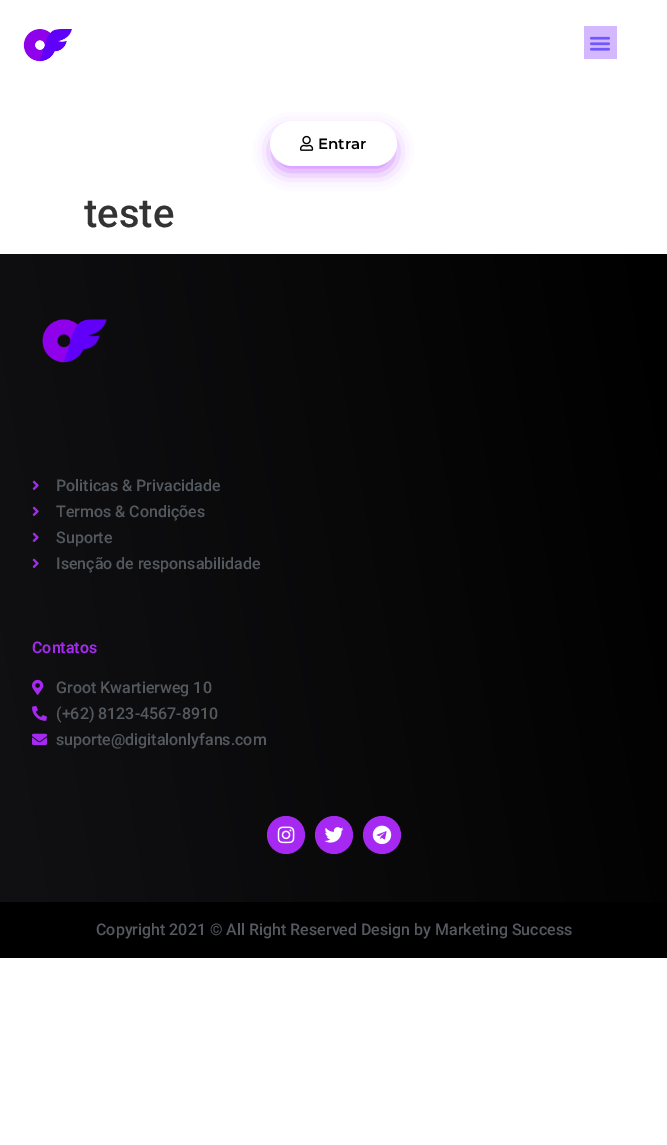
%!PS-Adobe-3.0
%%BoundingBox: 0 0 667 1145
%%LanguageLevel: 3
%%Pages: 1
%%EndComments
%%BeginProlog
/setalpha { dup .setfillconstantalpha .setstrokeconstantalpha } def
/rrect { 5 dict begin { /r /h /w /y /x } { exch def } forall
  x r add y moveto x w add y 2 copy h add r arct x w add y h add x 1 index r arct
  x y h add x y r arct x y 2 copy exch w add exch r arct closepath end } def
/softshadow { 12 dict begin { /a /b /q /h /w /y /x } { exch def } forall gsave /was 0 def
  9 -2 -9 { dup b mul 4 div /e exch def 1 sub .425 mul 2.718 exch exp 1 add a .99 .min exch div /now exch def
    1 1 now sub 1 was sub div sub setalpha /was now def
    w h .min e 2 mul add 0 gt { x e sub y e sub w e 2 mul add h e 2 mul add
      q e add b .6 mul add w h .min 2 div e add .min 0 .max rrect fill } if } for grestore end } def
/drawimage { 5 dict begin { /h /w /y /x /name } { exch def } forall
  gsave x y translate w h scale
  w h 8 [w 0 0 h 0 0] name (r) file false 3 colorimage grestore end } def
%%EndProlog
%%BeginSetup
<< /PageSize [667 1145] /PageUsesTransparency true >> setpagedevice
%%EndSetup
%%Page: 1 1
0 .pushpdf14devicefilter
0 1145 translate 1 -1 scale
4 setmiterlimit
1 setgray
0 0 667 1145 rectfill
(images/1.raw) 23 29 49 33 drawimage
0.831 0.722 1 setrgbcolor
584 26 33 33 rectfill
(images/2.raw) 590 36 20 15 drawimage
0.604 0.004 1 setrgbcolor
273 132 121 39 19.5 9 0.5 softshadow
1 setgray
270 121 127 45 22.5 rrect fill
(images/3.raw) 300 135 14 16 drawimage
gsave newpath 0 254 moveto 667 254 lineto 667 902 lineto 0 902 lineto closepath clip newpath
<< /ShadingType 2 /ColorSpace /DeviceRGB /Coords [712 511 -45 645] /Extend [true true] /Function << /FunctionType 2 /Domain [0 1] /C0 [0 0 0] /C1 [0.067 0.067 0.078] /N 1 >> >> shfill grestore
(images/4.raw) 42 319 65 44 drawimage
(images/5.raw) 32 480 7 10 drawimage
(images/6.raw) 32 506 7 10 drawimage
(images/7.raw) 32 532 7 10 drawimage
(images/7.raw) 32 558 7 10 drawimage
(images/8.raw) 32 679 12 16 drawimage
(images/9.raw) 32 705 15 16 drawimage
(images/10.raw) 32 733 15 12 drawimage
0.651 0.161 0.949 setrgbcolor
newpath 286 835 19 0 360 arc closepath fill
(images/11.raw) 277 826 18 18 drawimage
newpath 334 835 19 0 360 arc closepath fill
(images/12.raw) 324 827 20 16 drawimage
newpath 382 835 19 0 360 arc closepath fill
(images/13.raw) 372 825 20 20 drawimage
0 setgray
0 902 667 56 rectfill
/Montserrat-SemiBold [15 0 0 -15 0 0] selectfont
318 149 moveto (Entrar) show
/Roboto-Medium [40 0 0 -40 0 0] selectfont
0.2 setgray
84 227 moveto (teste) show
/Roboto-Medium [16 0 0 -16 0 0] selectfont
0.329 0.349 0.373 setrgbcolor
56 491 moveto (Politicas & Privacidade) show
56 517 moveto (Termos & Condições) show
56 543 moveto (Suporte) show
56 569 moveto (Isenção de responsabilidade) show
/Roboto-SemiBold [16 0 0 -16 0 0] selectfont
0.651 0.161 0.949 setrgbcolor
32 653 moveto (Contatos) show
/Roboto-Medium [16 0 0 -16 0 0] selectfont
0.329 0.349 0.373 setrgbcolor
56 693 moveto (Groot Kwartierweg 10) show
56 719 moveto (\(+62\) 8123-4567-8910) show
56 745 moveto (suporte@digitalonlyfans.com) show
96 935 moveto (Copyright 2021 © All Right Reserved Design by Marketing Success) show
.poppdf14devicefilter showpage
%%EOF
